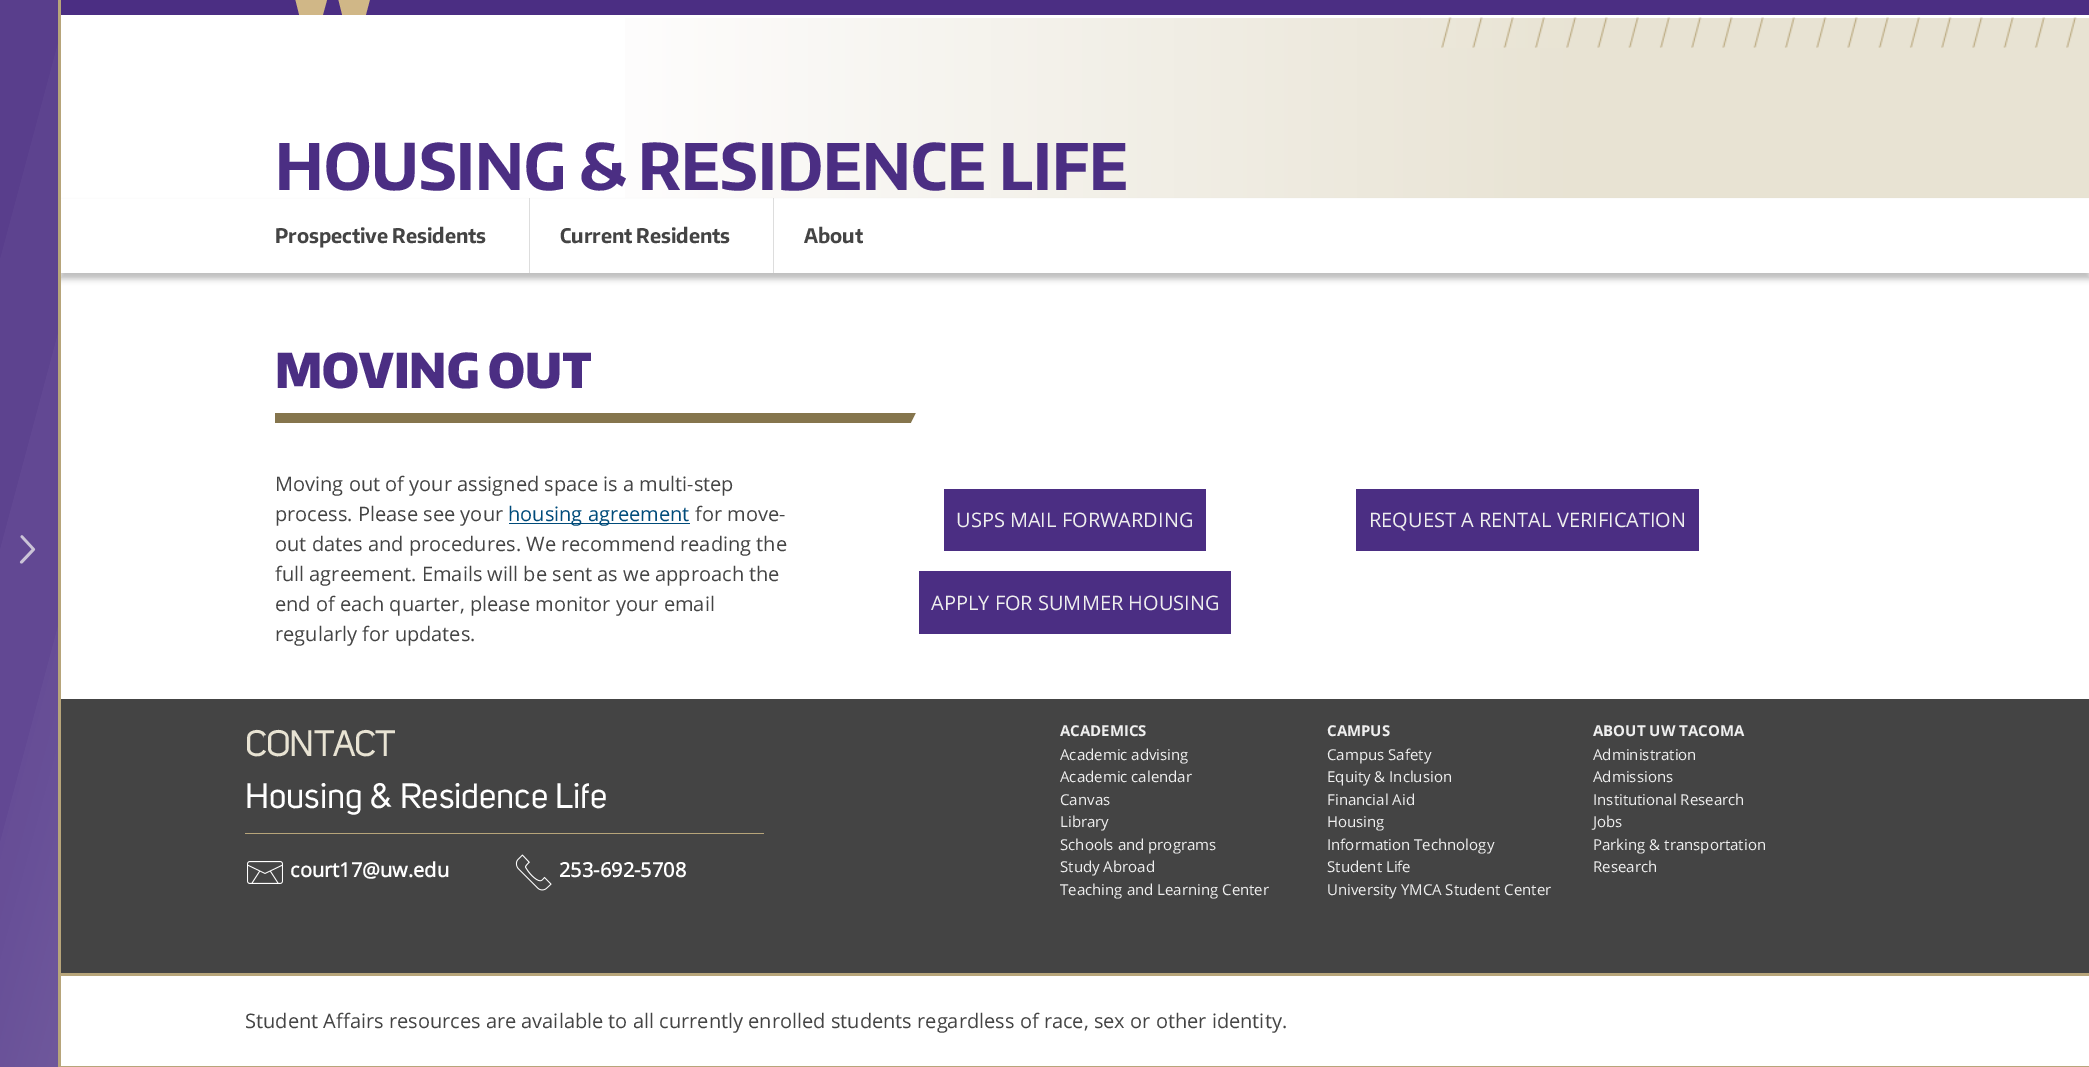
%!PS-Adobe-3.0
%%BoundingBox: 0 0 2089 1067
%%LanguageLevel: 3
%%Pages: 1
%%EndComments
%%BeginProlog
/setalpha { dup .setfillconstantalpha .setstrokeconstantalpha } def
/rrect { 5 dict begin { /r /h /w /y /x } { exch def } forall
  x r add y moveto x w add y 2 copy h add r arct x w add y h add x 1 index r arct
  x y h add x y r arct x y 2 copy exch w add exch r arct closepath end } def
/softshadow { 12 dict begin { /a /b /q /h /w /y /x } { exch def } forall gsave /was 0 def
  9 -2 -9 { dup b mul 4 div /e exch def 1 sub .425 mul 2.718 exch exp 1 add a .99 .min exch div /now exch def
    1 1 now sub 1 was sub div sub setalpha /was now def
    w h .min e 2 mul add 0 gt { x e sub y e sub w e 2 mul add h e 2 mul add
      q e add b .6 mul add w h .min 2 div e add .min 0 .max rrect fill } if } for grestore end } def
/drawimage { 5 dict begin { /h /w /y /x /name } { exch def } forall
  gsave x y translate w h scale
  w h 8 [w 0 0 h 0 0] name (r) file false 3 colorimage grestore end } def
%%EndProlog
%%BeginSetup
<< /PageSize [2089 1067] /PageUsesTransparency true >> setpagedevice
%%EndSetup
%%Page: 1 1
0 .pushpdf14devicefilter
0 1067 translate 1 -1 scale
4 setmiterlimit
1 setgray
0 0 2089 1067 rectfill
gsave newpath 625 18 moveto 2089 18 lineto 2089 198 lineto 625 198 lineto closepath clip newpath
<< /ShadingType 2 /ColorSpace /DeviceRGB /Coords [60 108 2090 107] /Extend [true true] /Function << /FunctionType 3 /Domain [0 1] /Functions [<< /FunctionType 2 /Domain [0 1] /C0 [1 1 1] /C1 [1 1 1] /N 1 >> << /FunctionType 2 /Domain [0 1] /C0 [1 1 1] /C1 [0.91 0.89 0.827] /N 1 >> << /FunctionType 2 /Domain [0 1] /C0 [0.91 0.89 0.827] /C1 [0.91 0.89 0.827] /N 1 >>] /Bounds [0.25 0.75] /Encode [0 1 0 1 0 1] >> >> shfill grestore
0 setgray
60 204 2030 75 0 3 0.25 softshadow
0.718 0.647 0.478 setrgbcolor
58 0 3 1067 rectfill
gsave newpath 0 0 moveto 58 0 lineto 58 1067 lineto 0 1067 lineto closepath clip newpath
<< /ShadingType 2 /ColorSpace /DeviceRGB /Coords [-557 436 174 632] /Extend [true true] /Function << /FunctionType 3 /Domain [0 1] /Functions [<< /FunctionType 2 /Domain [0 1] /C0 [0.294 0.18 0.514] /C1 [0.294 0.18 0.514] /N 1 >> << /FunctionType 2 /Domain [0 1] /C0 [0.31 0.2 0.525] /C1 [0.31 0.2 0.525] /N 1 >> << /FunctionType 2 /Domain [0 1] /C0 [0.349 0.243 0.549] /C1 [0.349 0.243 0.549] /N 1 >> << /FunctionType 2 /Domain [0 1] /C0 [0.365 0.263 0.561] /C1 [0.365 0.263 0.561] /N 1 >> << /FunctionType 2 /Domain [0 1] /C0 [0.384 0.282 0.576] /C1 [0.384 0.282 0.576] /N 1 >> << /FunctionType 2 /Domain [0 1] /C0 [0.4 0.302 0.588] /C1 [0.435 0.345 0.612] /N 1 >>] /Bounds [0.45 0.55 0.65 0.75 0.85] /Encode [0 1 0 1 0 1 0 1 0 1 0 1] >> >> shfill grestore
(images/1.raw) 19 535 17 29 drawimage
0.294 0.18 0.514 setrgbcolor
61 0 2028 15 rectfill
gsave
275 0 116 15 rectclip
0.816 0.718 0.529 setrgbcolor
newpath 360 -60 moveto 360 -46 lineto 370 -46 lineto 359 -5 lineto 345 -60 lineto 331 -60 lineto 316 -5 lineto 306 -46 lineto 316 -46 lineto 316 -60 lineto 275 -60 lineto 275 -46 lineto 284 -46 lineto 300 18 lineto 322 18 lineto 333 -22 lineto 343 18 lineto 365 18 lineto 382 -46 lineto 391 -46 lineto 391 -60 lineto closepath fill
grestore
(images/2.raw) 1420 17 657 31 drawimage
1 setgray
61 199 2028 74 rectfill
0.867 setgray
529 198 1 75 rectfill
773 198 1 75 rectfill
0.522 0.459 0.302 setrgbcolor
275 413 641 10 rectfill
gsave
275 334 1600 94 rectclip
1 setgray
newpath 921 403 moveto 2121 403 lineto 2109 427 lineto 909 427 lineto closepath fill
grestore
0 0.294 0.478 setrgbcolor
509 523 181 1 rectfill
0.294 0.18 0.514 setrgbcolor
944 489 262 62 rectfill
919 571 312 63 rectfill
1356 489 343 62 rectfill
0.267 setgray
61 699 2028 274 rectfill
0.718 0.647 0.478 setrgbcolor
61 973 2028 3 rectfill
245 833 519 1 rectfill
(images/3.raw) 247 861 36 23 drawimage
(images/4.raw) 515 854 37 37 drawimage
61 1066 2028 1 rectfill
/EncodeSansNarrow-Bold [63.6 0 0 -63.6 0 0] selectfont
0.294 0.18 0.514 setrgbcolor
275 190 moveto (HOUSING & RESIDENCE LIFE) show
/EncodeSansNarrow-Bold [20 0 0 -20 0 0] selectfont
0.267 setgray
275 243 moveto (Prospective Residents) show
560 243 moveto (Current Residents) show
804 243 moveto (About) show
/EncodeSansNarrow-Black [47.5 0 0 -47.5 0 0] selectfont
0.294 0.18 0.514 setrgbcolor
275 388 moveto (MOVING OUT) show
/OpenSans-Regular [20 0 0 -20 0 0] selectfont
0.267 setgray
275 491 moveto (Moving out of your assigned space is a multi-step) show
275 521 moveto (process. Please see your) show
0 0.294 0.478 setrgbcolor
508 521 moveto (housing agreement) show
0.267 setgray
695 521 moveto (for move-) show
275 551 moveto (out dates and procedures. We recommend reading the) show
275 581 moveto (full agreement. Emails will be sent as we approach the) show
275 611 moveto (end of each quarter, please monitor your email) show
275 641 moveto (regularly for updates.) show
0.933 setgray
956 527 moveto (USPS MAIL FORWARDING) show
931 610 moveto (APPLY FOR SUMMER HOUSING) show
1369 527 moveto (REQUEST A RENTAL VERIFICATION) show
/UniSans-Bold [35 0 0 -35 0 0] selectfont
0.91 0.89 0.827 setrgbcolor
245 756 moveto (CONTACT) show
/UniSans-Regular [35 0 0 -35 0 0] selectfont
1 setgray
245 808 moveto (Housing & Residence Life) show
/OpenSans-Bold [20 0 0 -20 0 0] selectfont
290 877 moveto (court17@uw.edu) show
559 877 moveto (253-692-5708) show
/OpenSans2-Bold [15 0 0 -15 0 0] selectfont
0.933 setgray
1060 736 moveto (ACADEMICS) show
/OpenSans-Regular [15 0 0 -15 0 0] selectfont
1060 760 moveto (Academic advising) show
1060 782 moveto (Academic calendar) show
1060 805 moveto (Canvas) show
1060 827 moveto (Library) show
1060 850 moveto (Schools and programs) show
1060 872 moveto (Study Abroad) show
1060 895 moveto (Teaching and Learning Center) show
/OpenSans2-Bold [15 0 0 -15 0 0] selectfont
1327 736 moveto (CAMPUS) show
/OpenSans-Regular [15 0 0 -15 0 0] selectfont
1327 760 moveto (Campus Safety) show
1327 782 moveto (Equity & Inclusion) show
1327 805 moveto (Financial Aid) show
1327 827 moveto (Housing) show
1327 850 moveto (Information Technology) show
1327 872 moveto (Student Life) show
1327 895 moveto (University YMCA Student Center) show
/OpenSans2-Bold [15 0 0 -15 0 0] selectfont
1593 736 moveto (ABOUT UW TACOMA) show
/OpenSans-Regular [15 0 0 -15 0 0] selectfont
1593 760 moveto (Administration) show
1593 782 moveto (Admissions) show
1593 805 moveto (Institutional Research) show
1593 827 moveto (Jobs) show
1593 850 moveto (Parking & transportation) show
1593 872 moveto (Research) show
/OpenSans-Regular [20 0 0 -20 0 0] selectfont
0.267 setgray
245 1028 moveto (Student Affairs resources are available to all currently enrolled students regardless of race, sex or other identity.) show
.poppdf14devicefilter showpage
%%EOF
